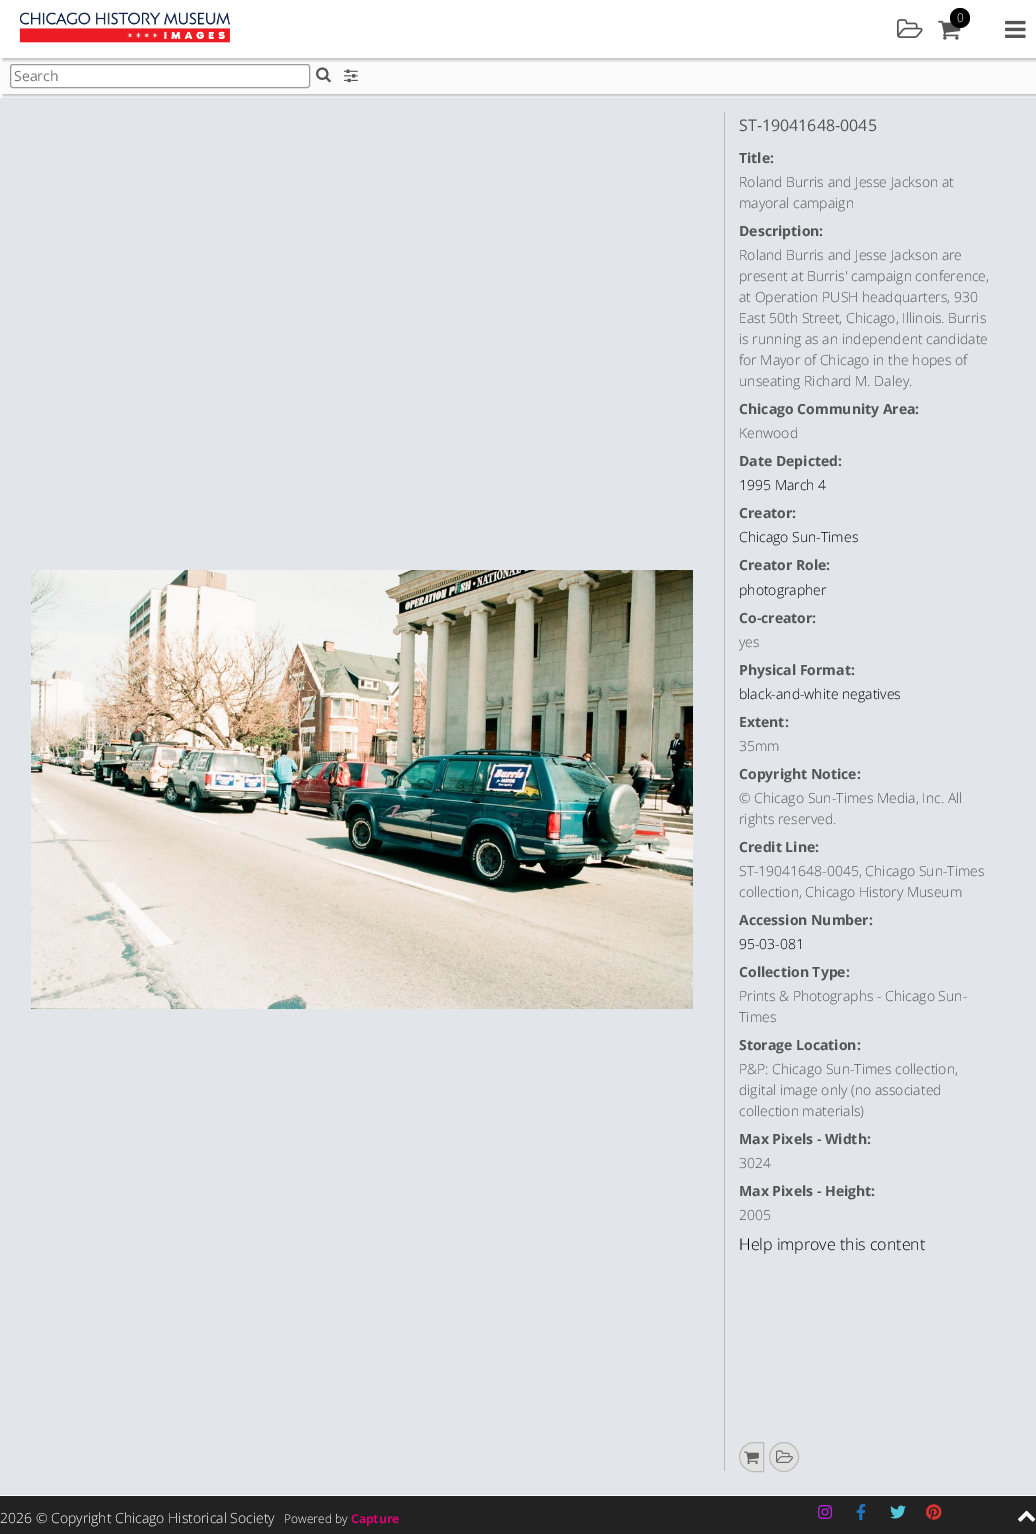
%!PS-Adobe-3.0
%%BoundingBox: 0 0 1036 1534
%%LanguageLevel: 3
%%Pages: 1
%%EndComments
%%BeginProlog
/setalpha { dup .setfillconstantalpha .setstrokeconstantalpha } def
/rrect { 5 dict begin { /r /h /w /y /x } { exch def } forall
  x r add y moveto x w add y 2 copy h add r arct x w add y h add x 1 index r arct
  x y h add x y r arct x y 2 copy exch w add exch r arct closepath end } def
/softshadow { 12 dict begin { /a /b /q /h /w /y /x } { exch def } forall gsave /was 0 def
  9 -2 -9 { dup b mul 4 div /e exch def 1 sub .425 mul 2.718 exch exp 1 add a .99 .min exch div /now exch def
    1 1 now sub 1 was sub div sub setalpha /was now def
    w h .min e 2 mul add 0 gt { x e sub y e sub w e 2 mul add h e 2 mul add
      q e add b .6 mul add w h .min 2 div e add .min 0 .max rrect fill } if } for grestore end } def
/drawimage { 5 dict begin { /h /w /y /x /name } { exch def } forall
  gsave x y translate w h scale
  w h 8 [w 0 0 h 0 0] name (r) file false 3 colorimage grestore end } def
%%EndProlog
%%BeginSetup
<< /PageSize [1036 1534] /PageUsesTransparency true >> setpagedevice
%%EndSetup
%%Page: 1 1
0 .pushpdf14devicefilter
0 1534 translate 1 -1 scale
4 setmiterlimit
1 setgray
0 0 1036 1534 rectfill
0.886 0.898 0.914 setrgbcolor
0 98 1036 1397 rectfill
0.29 0.271 0.271 setrgbcolor
3 60 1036 36 0 1.5 0.35 softshadow
0.984 setgray
0 58 1036 36 rectfill
1 setgray
10.5 64.5 299 23 2.5 rrect gsave fill grestore
0.6 setgray
stroke
0.29 0.271 0.271 setrgbcolor
3 2 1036 58 0 1.5 0.35 softshadow
1 setgray
0 0 1036 58 rectfill
(images/1.raw) 19 12 211 31 drawimage
(images/2.raw) 938 20 23 20 drawimage
0 setgray
newpath 960 18 10 0 360 arc closepath fill
(images/3.raw) 897 19 26 19 drawimage
(images/4.raw) 1005 20 21 18 drawimage
(images/5.raw) 316 67 15 16 drawimage
(images/6.raw) 344 69 14 14 drawimage
0.718 0.741 0.784 setrgbcolor
724 112 1 1359 rectfill
(images/7.raw) 31 570 662 440 drawimage
0.886 setgray
newpath 754 1442.5 moveto 763.5 1442.5 lineto 763.5 1471.5 lineto 754 1471.5 lineto 746 1471.5 739.5 1465 739.5 1457 curveto 739.5 1449 746 1442.5 754 1442.5 curveto closepath gsave fill grestore
0.733 setgray
stroke
(images/8.raw) 744 1451 15 14 drawimage
0.886 setgray
newpath 784 1457 14.5 0 360 arc closepath gsave fill grestore
0.733 setgray
stroke
(images/9.raw) 776 1450 17 13 drawimage
0.133 setgray
0 1496 1036 38 rectfill
(images/10.raw) 818 1505 14 14 drawimage
(images/11.raw) 856 1504 10 16 drawimage
(images/12.raw) 890 1505 16 14 drawimage
(images/13.raw) 926 1504 16 16 drawimage
(images/14.raw) 1018 1510 18 12 drawimage
/OpenSans-Light [12 0 0 -12 0 0] selectfont
1 setgray
957 22 moveto (0) show
/OpenSans-Regular [14 0 0 -14 0 0] selectfont
0.459 setgray
14 81 moveto (Search) show
/OpenSans-Regular [16 0 0 -16 0 0] selectfont
0.333 setgray
739 131 moveto (ST-19041648-0045) show
/OpenSans-Bold [14 0 0 -14 0 0] selectfont
739 163 moveto (Title:) show
/OpenSans-Light [14 0 0 -14 0 0] selectfont
739 187 moveto (Roland Burris and Jesse Jackson at) show
739 208 moveto (mayoral campaign) show
/OpenSans-Bold [14 0 0 -14 0 0] selectfont
739 236 moveto (Description:) show
/OpenSans-Light [14 0 0 -14 0 0] selectfont
739 260 moveto (Roland Burris and Jesse Jackson are) show
739 281 moveto (present at Burris' campaign conference,) show
739 302 moveto (at Operation PUSH headquarters, 930) show
739 323 moveto (East 50th Street, Chicago, Illinois. Burris) show
739 344 moveto (is running as an independent candidate) show
739 365 moveto (for Mayor of Chicago in the hopes of) show
739 386 moveto (unseating Richard M. Daley.) show
/OpenSans-Bold [14 0 0 -14 0 0] selectfont
739 414 moveto (Chicago Community Area:) show
/OpenSans-Light [14 0 0 -14 0 0] selectfont
739 438 moveto (Kenwood) show
/OpenSans-Bold [14 0 0 -14 0 0] selectfont
739 466 moveto (Date Depicted:) show
/OpenSans-Light [14 0 0 -14 0 0] selectfont
0 setgray
739 490 moveto (1995 March 4) show
/OpenSans-Bold [14 0 0 -14 0 0] selectfont
0.333 setgray
739 518 moveto (Creator:) show
/OpenSans-Light [14 0 0 -14 0 0] selectfont
0 setgray
739 542 moveto (Chicago Sun-Times) show
/OpenSans-Bold [14 0 0 -14 0 0] selectfont
0.333 setgray
739 570 moveto (Creator Role:) show
/OpenSans-Light [14 0 0 -14 0 0] selectfont
0 setgray
739 595 moveto (photographer) show
/OpenSans-Bold [14 0 0 -14 0 0] selectfont
0.333 setgray
739 623 moveto (Co-creator:) show
/OpenSans-Light [14 0 0 -14 0 0] selectfont
739 647 moveto (yes) show
/OpenSans-Bold [14 0 0 -14 0 0] selectfont
739 675 moveto (Physical Format:) show
/OpenSans-Light [14 0 0 -14 0 0] selectfont
0 setgray
739 699 moveto (black-and-white negatives) show
/OpenSans-Bold [14 0 0 -14 0 0] selectfont
0.333 setgray
739 727 moveto (Extent:) show
/OpenSans-Light [14 0 0 -14 0 0] selectfont
739 751 moveto (35mm) show
/OpenSans-Bold [14 0 0 -14 0 0] selectfont
739 779 moveto (Copyright Notice:) show
/OpenSans-Light [14 0 0 -14 0 0] selectfont
739 803 moveto (© Chicago Sun-Times Media, Inc. All) show
739 824 moveto (rights reserved.) show
/OpenSans-Bold [14 0 0 -14 0 0] selectfont
739 852 moveto (Credit Line:) show
/OpenSans-Light [14 0 0 -14 0 0] selectfont
739 876 moveto (ST-19041648-0045, Chicago Sun-Times) show
739 897 moveto (collection, Chicago History Museum) show
/OpenSans-Bold [14 0 0 -14 0 0] selectfont
739 925 moveto (Accession Number:) show
/OpenSans-Light [14 0 0 -14 0 0] selectfont
0 setgray
739 949 moveto (95-03-081) show
/OpenSans-Bold [14 0 0 -14 0 0] selectfont
0.333 setgray
739 977 moveto (Collection Type:) show
/OpenSans-Light [14 0 0 -14 0 0] selectfont
739 1001 moveto (Prints & Photographs - Chicago Sun-) show
739 1022 moveto (Times) show
/OpenSans-Bold [14 0 0 -14 0 0] selectfont
739 1050 moveto (Storage Location:) show
/OpenSans-Light [14 0 0 -14 0 0] selectfont
739 1074 moveto (P&P: Chicago Sun-Times collection,) show
739 1095 moveto (digital image only \(no associated) show
739 1116 moveto (collection materials\)) show
/OpenSans-Bold [14 0 0 -14 0 0] selectfont
739 1144 moveto (Max Pixels - Width:) show
/OpenSans-Light [14 0 0 -14 0 0] selectfont
739 1168 moveto (3024) show
/OpenSans-Bold [14 0 0 -14 0 0] selectfont
739 1196 moveto (Max Pixels - Height:) show
/OpenSans-Light [14 0 0 -14 0 0] selectfont
739 1220 moveto (2005) show
/OpenSans-Light [16 0 0 -16 0 0] selectfont
0 setgray
739 1250 moveto (Help improve this content) show
/OpenSans-Light [14 0 0 -14 0 0] selectfont
1 setgray
0 1523 moveto (2026 © Copyright Chicago Historical Society) show
/OpenSans-Light [12 0 0 -12 0 0] selectfont
284 1523 moveto (Powered by) show
/OpenSans-Bold [12 0 0 -12 0 0] selectfont
0.859 0 0.455 setrgbcolor
351 1523 moveto (Capture) show
.poppdf14devicefilter showpage
%%EOF
